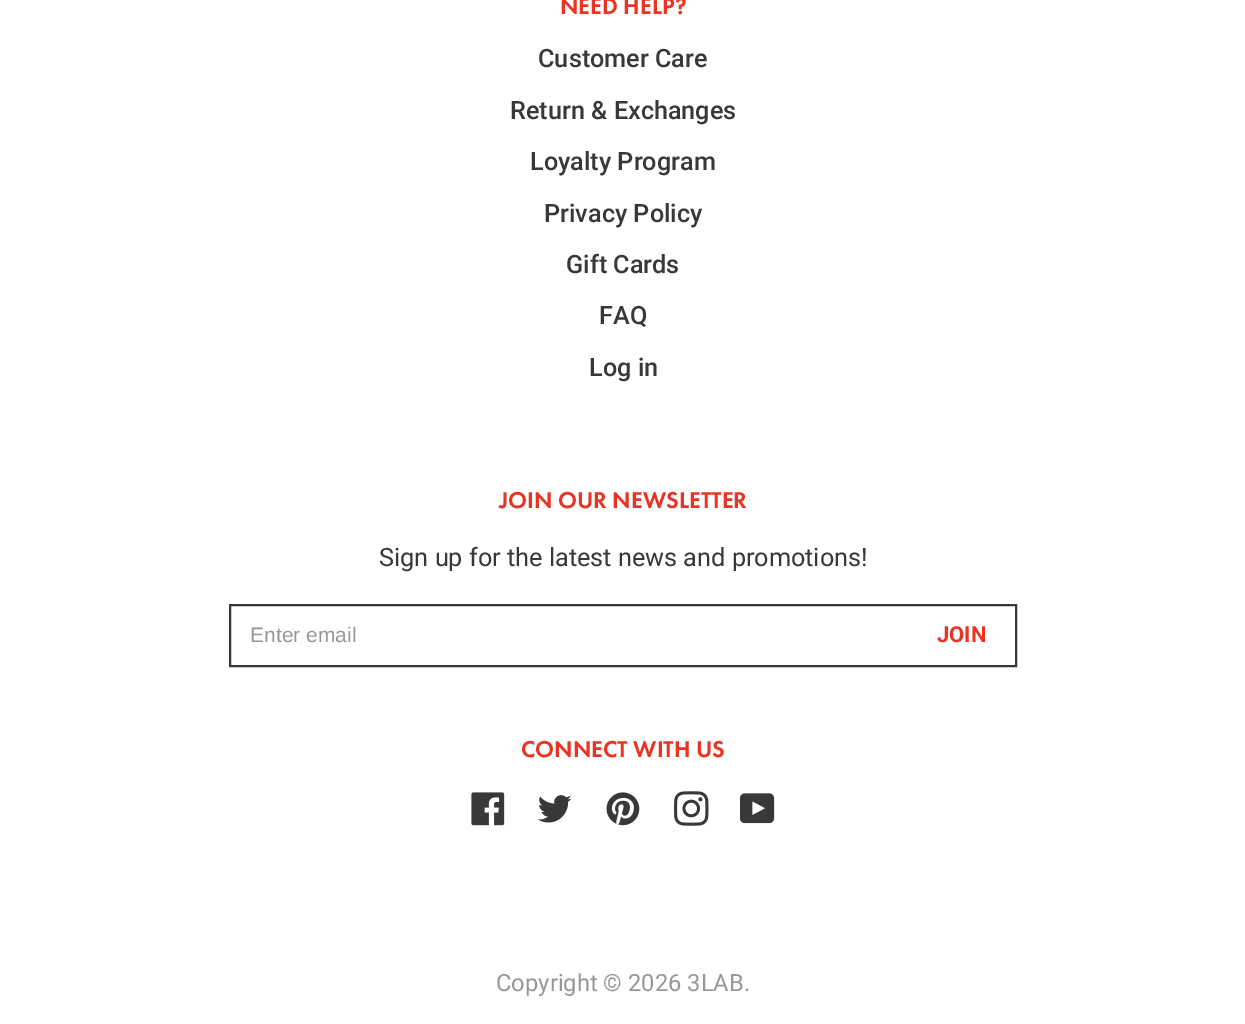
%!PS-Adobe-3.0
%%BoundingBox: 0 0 1245 1024
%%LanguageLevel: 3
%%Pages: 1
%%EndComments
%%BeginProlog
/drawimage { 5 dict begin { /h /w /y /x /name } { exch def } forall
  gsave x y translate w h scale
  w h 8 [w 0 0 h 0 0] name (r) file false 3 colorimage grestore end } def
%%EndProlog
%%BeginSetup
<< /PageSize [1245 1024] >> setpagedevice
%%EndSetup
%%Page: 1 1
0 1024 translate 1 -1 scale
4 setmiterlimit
1 setgray
0 0 1245 1024 rectfill
0.22 setgray
2 setlinewidth
230 605 786 61 rectstroke
(images/1.raw) 471 792 34 34 drawimage
(images/2.raw) 538 795 34 28 drawimage
(images/3.raw) 606 792 34 34 drawimage
(images/4.raw) 674 791 35 35 drawimage
(images/5.raw) 740 793 35 31 drawimage
/FuturaPT-Medium [23.75 0 0 -23.75 0 0] selectfont
0.918 0.2 0.137 setrgbcolor
560 14 moveto (NEED HELP?) show
/Roboto-Medium [25.25 0 0 -25.25 0 0] selectfont
0.22 setgray
538 67 moveto (Customer Care) show
510 119 moveto (Return & Exchanges) show
530 170 moveto (Loyalty Program) show
544 222 moveto (Privacy Policy) show
566 273 moveto (Gift Cards) show
599 324 moveto (FAQ) show
589 376 moveto (Log in) show
/FuturaPT-Medium [23.75 0 0 -23.75 0 0] selectfont
0.918 0.2 0.137 setrgbcolor
499 508 moveto (JOIN OUR NEWSLETTER) show
/Roboto-Regular [25.25 0 0 -25.25 0 0] selectfont
0.22 setgray
379 566 moveto (Sign up for the latest news and promotions!) show
/LiberationSans-Regular [21 0 0 -21 0 0] selectfont
0.592 setgray
250 642 moveto (Enter email) show
/Roboto-Bold [22 0 0 -22 0 0] selectfont
0.918 0.2 0.137 setrgbcolor
937 642 moveto (JOIN) show
/FuturaPT-Medium [23.75 0 0 -23.75 0 0] selectfont
521 757 moveto (CONNECT WITH US) show
/Roboto-Regular [23.75 0 0 -23.75 0 0] selectfont
0.592 setgray
496 991 moveto (Copyright © 2026 3LAB.) show
showpage
%%EOF
